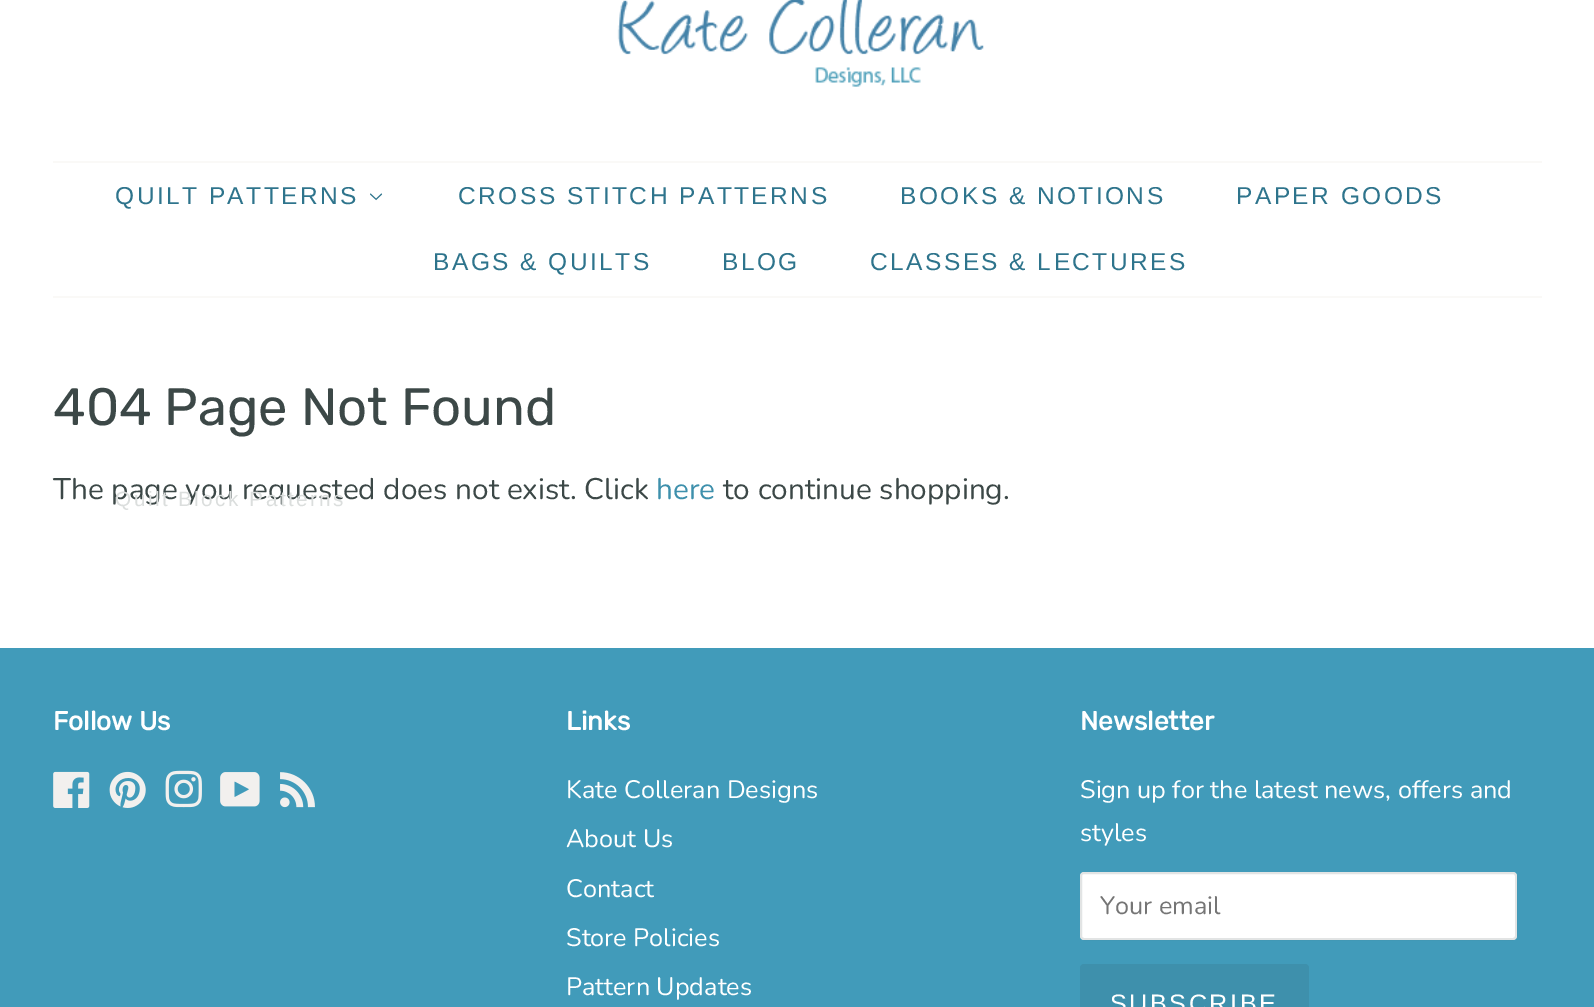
%!PS-Adobe-3.0
%%BoundingBox: 0 0 1594 1007
%%LanguageLevel: 3
%%Pages: 1
%%EndComments
%%BeginProlog
/setalpha { dup .setfillconstantalpha .setstrokeconstantalpha } def
/rrect { 5 dict begin { /r /h /w /y /x } { exch def } forall
  x r add y moveto x w add y 2 copy h add r arct x w add y h add x 1 index r arct
  x y h add x y r arct x y 2 copy exch w add exch r arct closepath end } def
/drawimage { 5 dict begin { /h /w /y /x /name } { exch def } forall
  gsave x y translate w h scale
  w h 8 [w 0 0 h 0 0] name (r) file false 3 colorimage grestore end } def
%%EndProlog
%%BeginSetup
<< /PageSize [1594 1007] /PageUsesTransparency true >> setpagedevice
%%EndSetup
%%Page: 1 1
0 .pushpdf14devicefilter
0 1007 translate 1 -1 scale
4 setmiterlimit
1 setgray
0 0 1594 1007 rectfill
(images/1.raw) 617 0 367 87 drawimage
0.98 0.976 0.969 setrgbcolor
53 161 1489 2 rectfill
53 296 1489 2 rectfill
(images/2.raw) 370 193 13 8 drawimage
0.255 0.608 0.729 setrgbcolor
0 648 1594 359 rectfill
(images/3.raw) 53 771 37 37 drawimage
(images/4.raw) 109 771 37 37 drawimage
(images/5.raw) 165 770 37 38 drawimage
(images/6.raw) 220 772 40 35 drawimage
(images/7.raw) 280 772 35 36 drawimage
1 setgray
1080 872 437 68 4 rrect fill
0.15 setalpha
0.235 0.282 0.278 setrgbcolor
2 setlinewidth
1081 873 435 66 3 rrect stroke
1 setalpha
0.243 0.565 0.675 setrgbcolor
1080 964 229 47 4 rrect fill
/Arimo-Regular [24.5 0 0 -24.5 0 0] selectfont
0.18 0.455 0.549 setrgbcolor
115 204 moveto 2.45 0 (QUILT PATTERNS) ashow
458 204 moveto 2.45 0 (CROSS STITCH PATTERNS) ashow
900 204 moveto 2.45 0 (BOOKS & NOTIONS) ashow
1236 204 moveto 2.45 0 (PAPER GOODS) ashow
433 270 moveto 2.45 0 (BAGS & QUILTS) ashow
722 270 moveto 2.45 0 (BLOG) ashow
870 270 moveto 2.45 0 (CLASSES & LECTURES) ashow
/Rubik-Regular [52.5 0 0 -52.5 0 0] selectfont
0.235 0.282 0.278 setrgbcolor
53 425 moveto (404 Page Not Found) show
/Nunito-Regular [29.75 0 0 -29.75 0 0] selectfont
53 499 moveto (The page you requested does not exist. Click) show
/Arimo-Regular [20.75 0 0 -20.75 0 0] selectfont
0.859 0.871 0.867 setrgbcolor
115 506 moveto 2.45 0 (Quilt Block Patterns) ashow
/Nunito-Regular [29.75 0 0 -29.75 0 0] selectfont
0.243 0.565 0.675 setrgbcolor
656 499 moveto (here) show
0.235 0.282 0.278 setrgbcolor
723 499 moveto (to continue shopping.) show
/Rubik-Bold [26.25 0 0 -26.25 0 0] selectfont
1 setgray
53 730 moveto (Follow Us) show
566 730 moveto (Links) show
/Nunito-Regular [25.25 0 0 -25.25 0 0] selectfont
566 798 moveto (Kate Colleran Designs) show
566 847 moveto (About Us) show
566 897 moveto (Contact) show
566 946 moveto (Store Policies) show
566 995 moveto (Pattern Updates) show
/Rubik-Bold [26.25 0 0 -26.25 0 0] selectfont
1080 730 moveto (Newsletter) show
/Nunito-Regular [25.25 0 0 -25.25 0 0] selectfont
1080 798 moveto (Sign up for the latest news, offers and) show
1080 841 moveto (styles) show
0.459 setgray
1100 914 moveto (Your email) show
/Arimo-Regular [25.25 0 0 -25.25 0 0] selectfont
1 setgray
1110 1012 moveto 2.5 0 (SUBSCRIBE) ashow
.poppdf14devicefilter showpage
%%EOF
